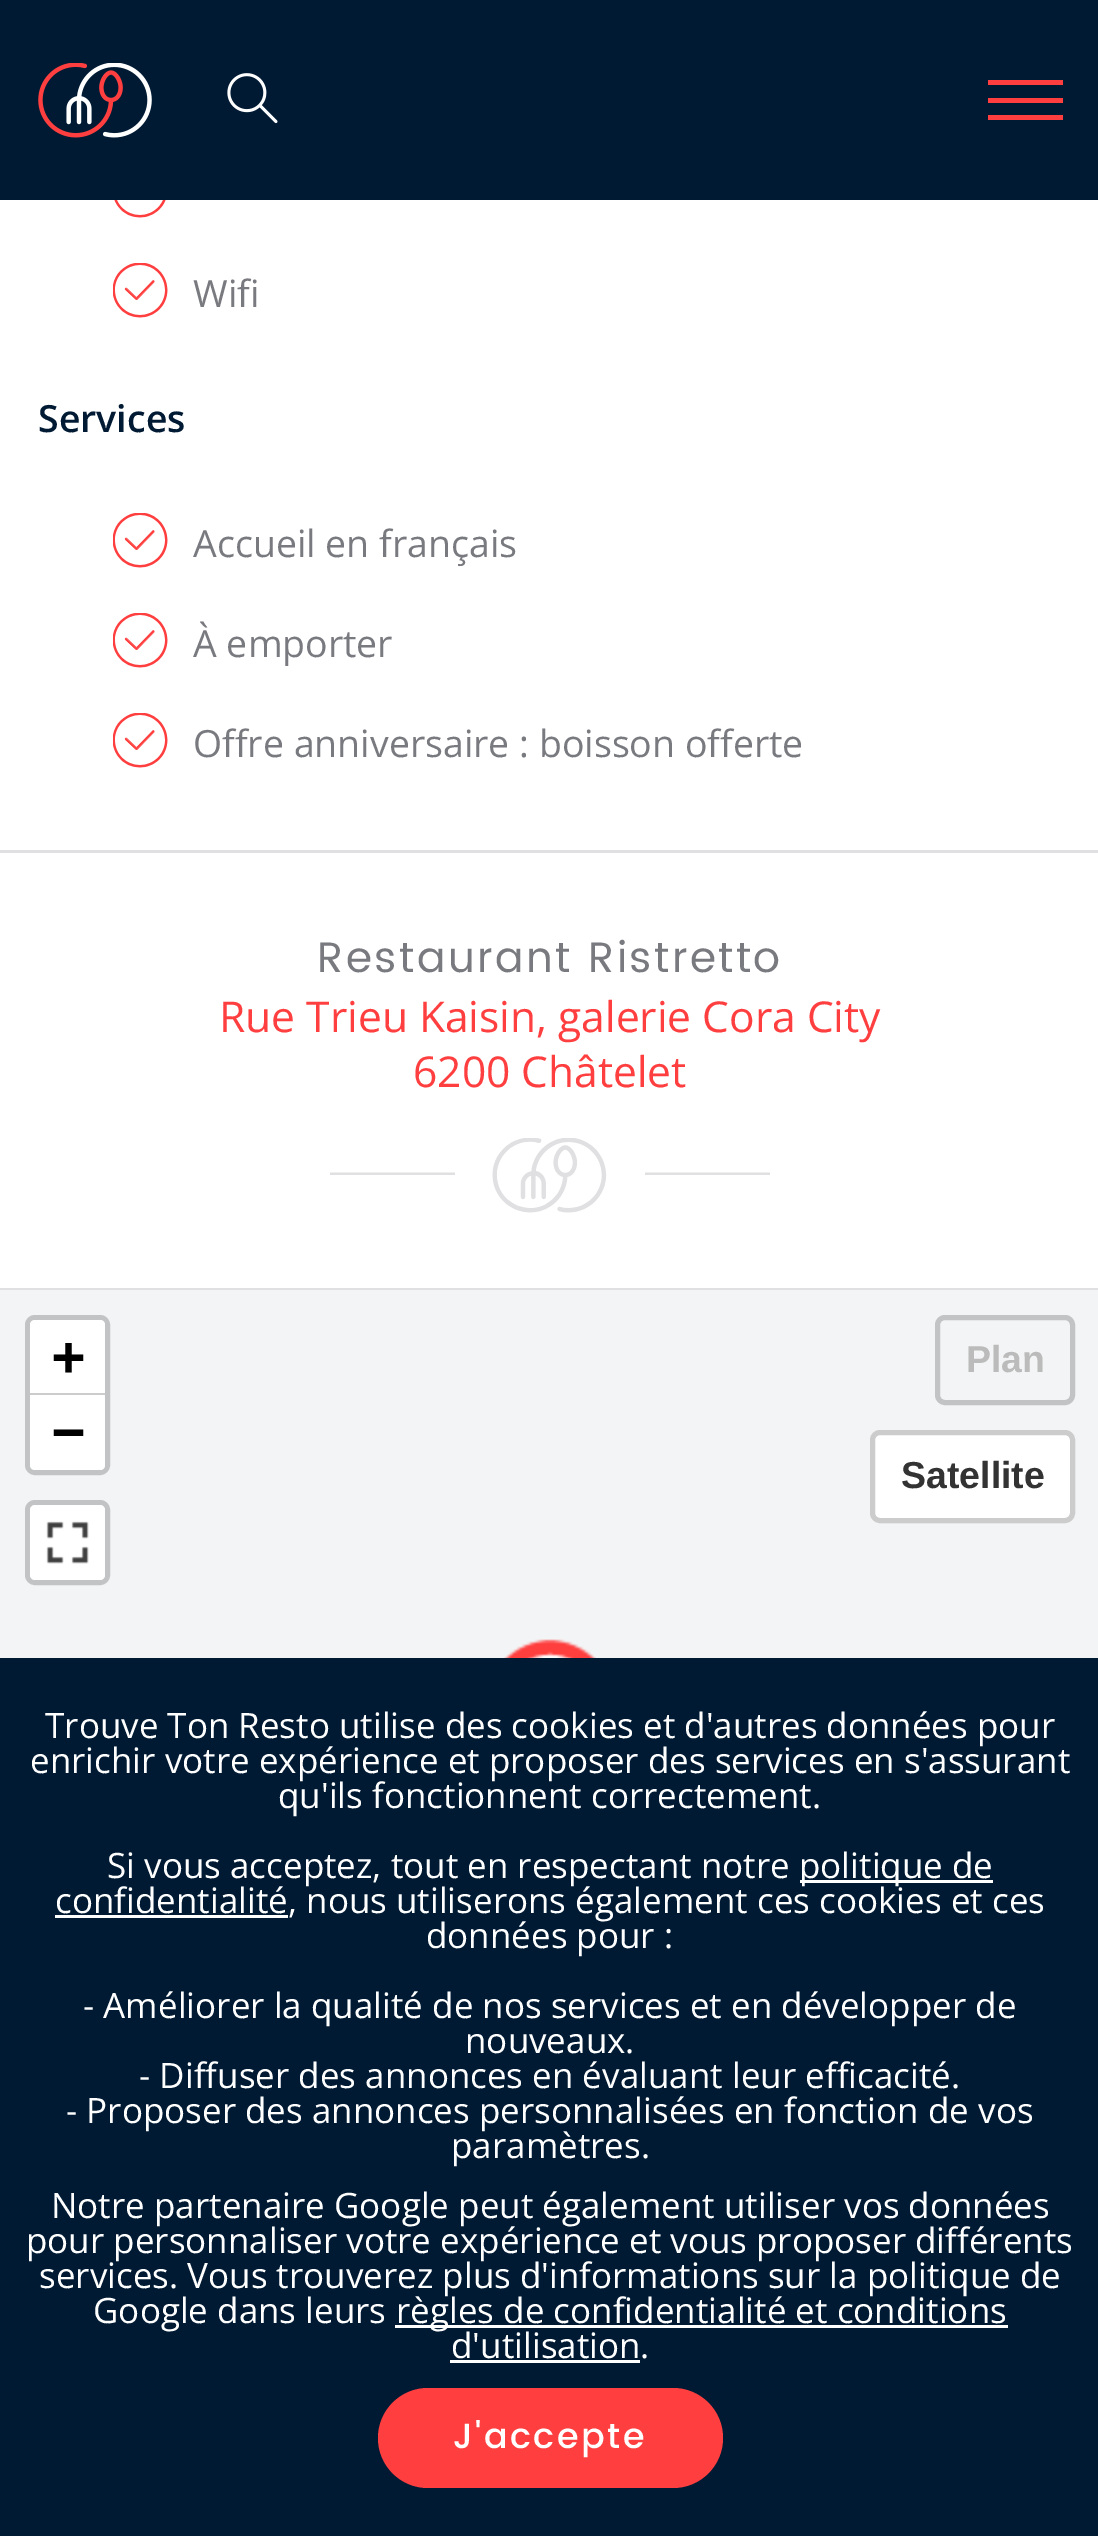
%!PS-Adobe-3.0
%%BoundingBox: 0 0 1098 2536
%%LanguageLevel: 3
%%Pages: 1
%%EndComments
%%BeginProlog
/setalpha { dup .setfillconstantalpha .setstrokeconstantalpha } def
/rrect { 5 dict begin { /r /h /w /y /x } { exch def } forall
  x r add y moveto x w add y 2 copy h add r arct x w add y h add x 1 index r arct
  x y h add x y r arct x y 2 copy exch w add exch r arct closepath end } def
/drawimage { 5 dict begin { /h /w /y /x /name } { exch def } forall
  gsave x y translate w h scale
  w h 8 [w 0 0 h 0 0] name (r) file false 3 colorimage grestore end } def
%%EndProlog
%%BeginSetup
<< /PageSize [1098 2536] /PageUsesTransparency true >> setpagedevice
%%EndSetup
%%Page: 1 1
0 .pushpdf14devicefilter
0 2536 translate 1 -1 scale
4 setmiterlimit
1 setgray
0 0 1098 2536 rectfill
0 0.102 0.2 setrgbcolor
0 0 1098 200 rectfill
(images/1.raw) 38 63 114 75 drawimage
(images/2.raw) 227 73 51 51 drawimage
1 0.247 0.247 setrgbcolor
988 98 75 5 rectfill
988 80 75 5 rectfill
988 115 75 5 rectfill
0.878 0.878 0.886 setrgbcolor
0 850 1098 3 rectfill
(images/3.raw) 114 200 52 18 drawimage
(images/4.raw) 113 263 55 55 drawimage
(images/4.raw) 113 513 55 55 drawimage
(images/4.raw) 113 613 55 55 drawimage
(images/4.raw) 113 713 55 55 drawimage
(images/5.raw) 330 1138 440 75 drawimage
0 1288 1098 2 rectfill
0.953 0.957 0.961 setrgbcolor
0 1290 1098 368 rectfill
0.761 0.765 0.769 setrgbcolor
5 setlinewidth
27.5 1317.5 80 155 7.5 rrect stroke
1 setgray
newpath 35 1320 moveto 100 1320 lineto 103 1320 105 1322 105 1325 curveto 105 1395 lineto 30 1395 lineto 30 1325 lineto 30 1322 32 1320 35 1320 curveto closepath fill
0.8 setgray
30 1393 75 2 rectfill
1 setgray
newpath 30 1395 moveto 105 1395 lineto 105 1465 lineto 105 1468 103 1470 100 1470 curveto 35 1470 lineto 32 1470 30 1468 30 1465 curveto closepath fill
0.761 0.765 0.769 setrgbcolor
27.5 1502.5 80 80 7.5 rrect stroke
1 setgray
30 1505 75 75 5 rrect fill
(images/6.raw) 46 1521 43 43 drawimage
0.761 0.765 0.769 setrgbcolor
937.5 1317.5 135 85 7.5 rrect stroke
1 setgray
870 1430 205 93 10 rrect fill
0.2 setalpha
0 setgray
872.5 1432.5 200 88 7.5 rrect stroke
1 setalpha
(images/7.raw) 504 1639 92 19 drawimage
0 0.102 0.2 setrgbcolor
0 1658 1098 878 rectfill
1 setgray
800 1880 193 3 rectfill
55 1915 233 3 rectfill
395 2325 613 3 rectfill
450 2360 190 3 rectfill
1 0.247 0.247 setrgbcolor
378 2388 345 100 50 rrect fill
/OpenSans-Regular [37.5 0 0 -37.5 0 0] selectfont
0.475 0.478 0.498 setrgbcolor
193 307 moveto (Wifi) show
/OpenSans-SemiBold [37.5 0 0 -37.5 0 0] selectfont
0 0.102 0.2 setrgbcolor
38 432 moveto (Services) show
/OpenSans-Regular [37.5 0 0 -37.5 0 0] selectfont
0.475 0.478 0.498 setrgbcolor
193 557 moveto (Accueil en français) show
193 657 moveto (À emporter) show
193 757 moveto (Offre anniversaire : boisson offerte) show
/Poppins-Regular [42.5 0 0 -42.5 0 0] selectfont
317 972 moveto 2.5 0 (Restaurant Ristretto) ashow
/OpenSans-Regular [42.5 0 0 -42.5 0 0] selectfont
1 0.247 0.247 setrgbcolor
219 1032 moveto (Rue Trieu Kaisin, galerie Cora City) show
413 1087 moveto (6200 Châtelet) show
/DejaVuSansMono-Bold [55 0 0 -55 0 0] selectfont
0 setgray
52 1375 moveto (+) show
52 1450 moveto (−) show
/LiberationSans-Bold [37.5 0 0 -37.5 0 0] selectfont
0.733 setgray
966 1372 moveto (Plan) show
0.2 setgray
901 1488 moveto (Satellite) show
/OpenSans-Regular [35 0 0 -35 0 0] selectfont
1 setgray
45 1738 moveto (Trouve Ton Resto utilise des cookies et d'autres données pour) show
30 1773 moveto (enrichir votre expérience et proposer des services en s'assurant) show
278 1808 moveto (qu'ils fonctionnent correctement.) show
107 1878 moveto (Si vous acceptez, tout en respectant notre) show
799 1878 moveto (politique de) show
55 1913 moveto (confidentialité, nous utiliserons également ces cookies et ces) show
426 1948 moveto (données pour :) show
83 2018 moveto (- Améliorer la qualité de nos services et en développer de) show
465 2053 moveto (nouveaux.) show
139 2088 moveto (- Diffuser des annonces en évaluant leur efficacité.) show
66 2123 moveto (- Proposer des annonces personnalisées en fonction de vos) show
451 2158 moveto (paramètres.) show
51 2218 moveto (Notre partenaire Google peut également utiliser vos données) show
26 2253 moveto (pour personnaliser votre expérience et vous proposer différents) show
39 2288 moveto (services. Vous trouverez plus d'informations sur la politique de) show
93 2323 moveto (Google dans leurs) show
396 2323 moveto (règles de confidentialité et conditions) show
451 2358 moveto (d'utilisation.) show
/Poppins-Medium [35 0 0 -35 0 0] selectfont
453 2448 moveto 2.5 0 (J'accepte) ashow
.poppdf14devicefilter showpage
%%EOF
